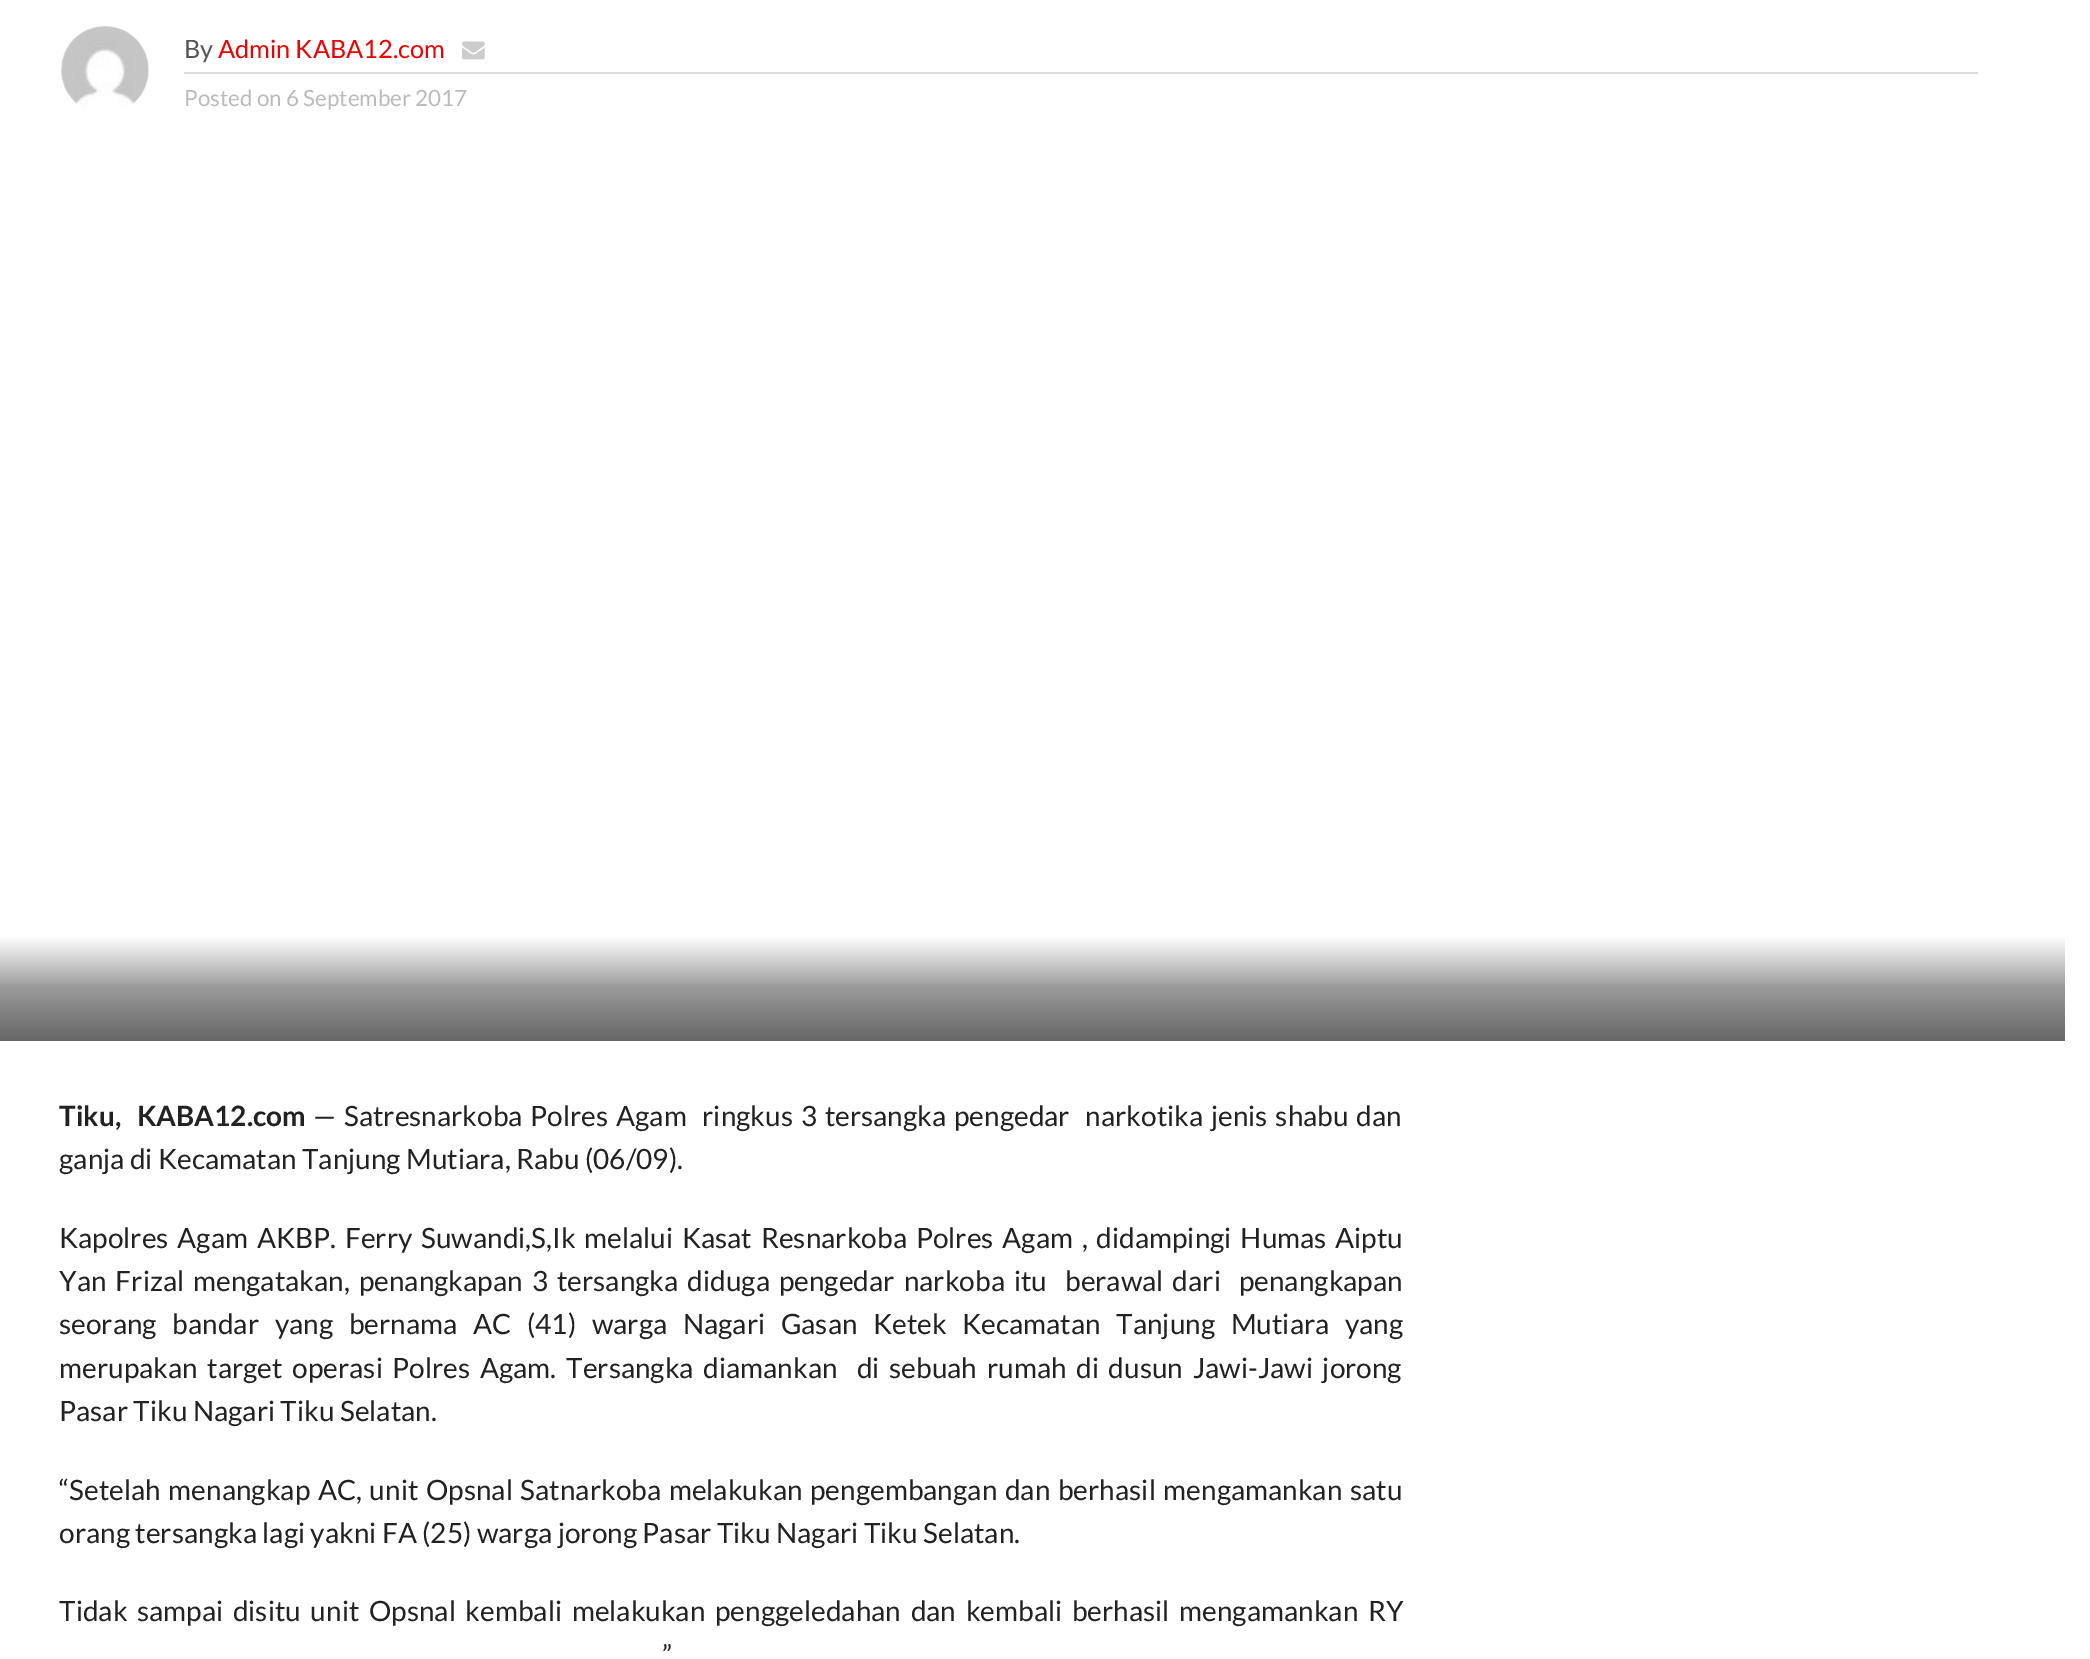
%!PS-Adobe-3.0
%%BoundingBox: 0 0 2090 1659
%%LanguageLevel: 3
%%Pages: 1
%%EndComments
%%BeginProlog
/drawimage { 5 dict begin { /h /w /y /x /name } { exch def } forall
  gsave x y translate w h scale
  w h 8 [w 0 0 h 0 0] name (r) file false 3 colorimage grestore end } def
%%EndProlog
%%BeginSetup
<< /PageSize [2090 1659] >> setpagedevice
%%EndSetup
%%Page: 1 1
0 1659 translate 1 -1 scale
4 setmiterlimit
1 setgray
0 0 2090 1659 rectfill
(images/1.raw) 61 26 88 82 drawimage
0.867 setgray
184 72 1794 2 rectfill
(images/2.raw) 462 41 23 19 drawimage
gsave newpath 0 937 moveto 2065 937 lineto 2065 1041 lineto 0 1041 lineto closepath clip newpath
<< /ShadingType 2 /ColorSpace /DeviceRGB /Coords [1019 936 1019 1041] /Extend [true true] /Function << /FunctionType 3 /Domain [0 1] /Functions [<< /FunctionType 2 /Domain [0 1] /C0 [1 1 1] /C1 [0.6 0.6 0.6] /N 1 >> << /FunctionType 2 /Domain [0 1] /C0 [0.6 0.6 0.6] /C1 [0.4 0.4 0.4] /N 1 >>] /Bounds [0.5] /Encode [0 1 0 1] >> >> shfill grestore
/Lato-Regular [25.25 0 0 -25.25 0 0] selectfont
0.333 setgray
184 58 moveto (By) show
0.922 0.012 0.012 setrgbcolor
218 58 moveto (Admin KABA12.com) show
/Lato-Regular [22.4 0 0 -22.4 0 0] selectfont
0.733 setgray
184 106 moveto (Posted on 6 September 2017) show
/Lato-Bold [28 0 0 -28 0 0] selectfont
0.133 setgray
59 1126 moveto 2.4 0 32 (Tiku,  KABA12.com) widthshow
/Lato-Regular [28 0 0 -28 0 0] selectfont
313 1126 moveto 2.4 0 32 (— Satresnarkoba Polres Agam  ringkus 3 tersangka pengedar  narkotika jenis shabu dan) widthshow
59 1169 moveto (ganja di Kecamatan Tanjung Mutiara, Rabu \(06/09\).) show
59 1248 moveto 3.4 0 32 (Kapolres Agam AKBP. Ferry Suwandi,S,Ik melalui Kasat Resnarkoba Polres Agam , didampingi Humas Aiptu) widthshow
59 1291 moveto 3.6 0 32 (Yan Frizal mengatakan, penangkapan 3 tersangka diduga pengedar narkoba itu  berawal dari  penangkapan) widthshow
59 1334 moveto 10.25 0 32 (seorang bandar yang bernama AC \(41\) warga Nagari Gasan Ketek Kecamatan Tanjung Mutiara yang) widthshow
59 1378 moveto 4.25 0 32 (merupakan target operasi Polres Agam. Tersangka diamankan  di sebuah rumah di dusun Jawi-Jawi jorong) widthshow
59 1421 moveto (Pasar Tiku Nagari Tiku Selatan.) show
59 1500 moveto 2.25 0 32 (“Setelah menangkap AC, unit Opsnal Satnarkoba melakukan pengembangan dan berhasil mengamankan satu) widthshow
59 1543 moveto (orang tersangka lagi yakni FA \(25\) warga jorong Pasar Tiku Nagari Tiku Selatan.) show
59 1621 moveto 4.25 0 32 (Tidak sampai disitu unit Opsnal kembali melakukan penggeledahan dan kembali berhasil mengamankan RY) widthshow
662 1665 moveto (”) show
showpage
%%EOF
